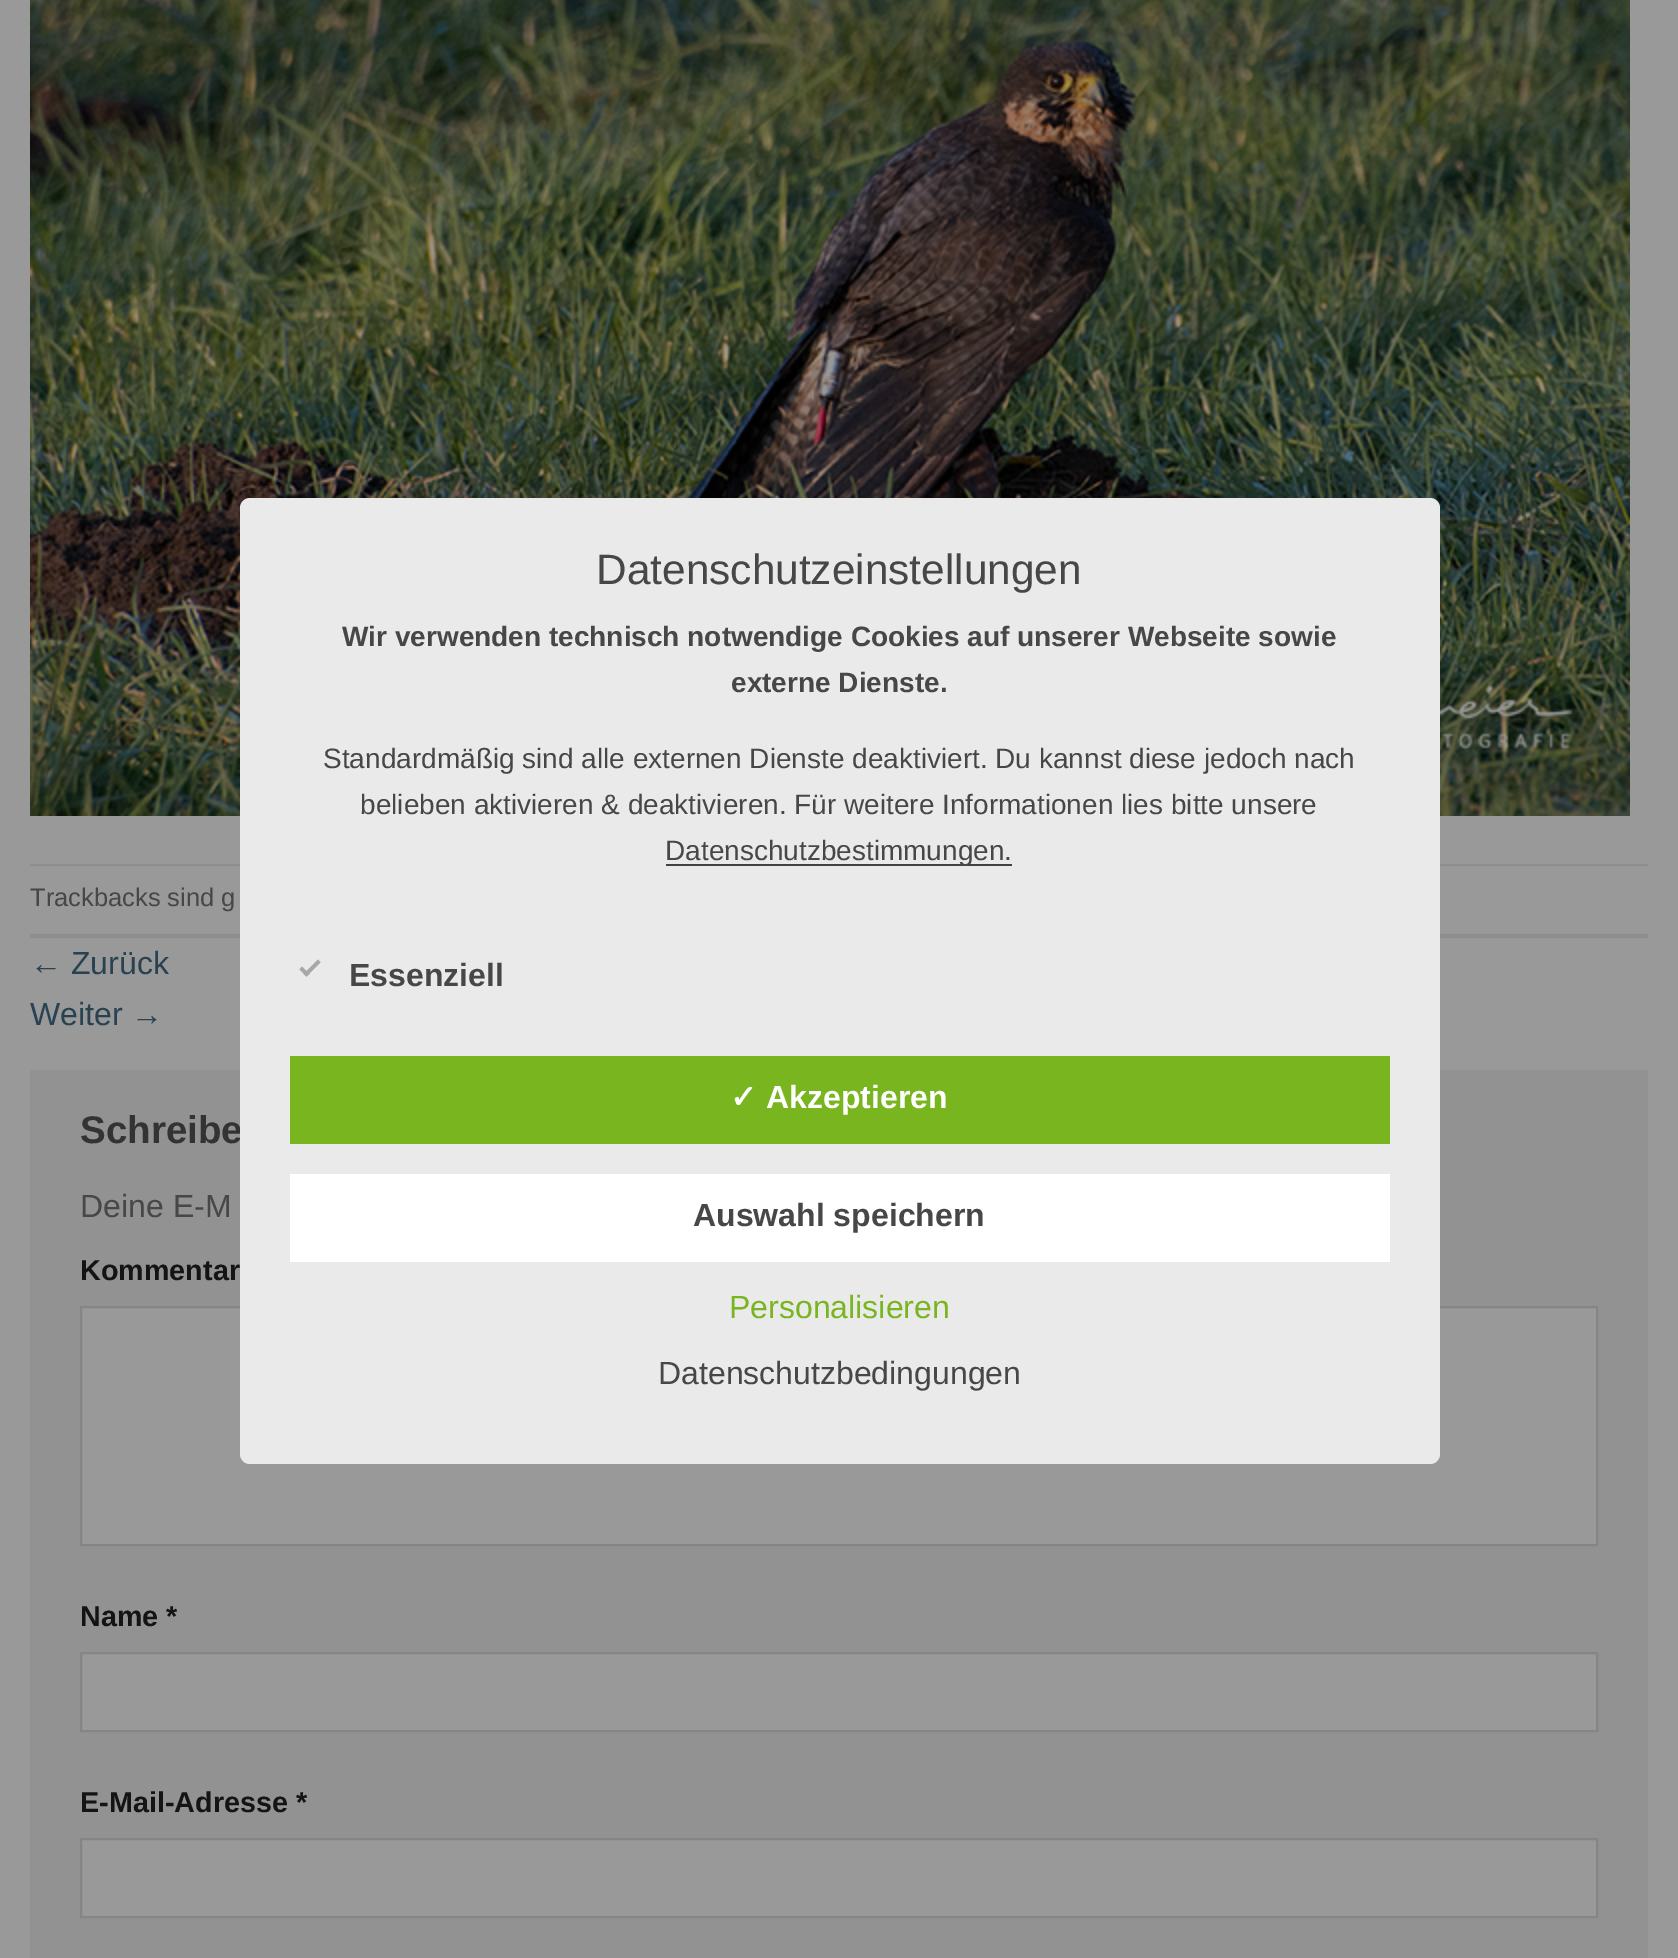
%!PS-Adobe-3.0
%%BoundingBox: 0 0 1678 1958
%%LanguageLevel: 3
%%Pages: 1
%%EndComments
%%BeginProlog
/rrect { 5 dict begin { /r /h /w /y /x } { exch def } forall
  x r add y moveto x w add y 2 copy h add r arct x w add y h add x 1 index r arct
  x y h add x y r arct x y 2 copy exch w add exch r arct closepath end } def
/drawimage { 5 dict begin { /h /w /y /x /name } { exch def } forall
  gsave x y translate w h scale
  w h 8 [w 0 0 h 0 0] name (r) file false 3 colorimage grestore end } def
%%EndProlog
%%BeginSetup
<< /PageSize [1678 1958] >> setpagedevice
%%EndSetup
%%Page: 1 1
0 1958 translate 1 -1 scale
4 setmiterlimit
0.6 setgray
0 0 1678 1958 rectfill
(images/1.raw) 30 0 1600 816 drawimage
0.557 setgray
30 864 1618 2 rectfill
30 934 1618 4 rectfill
0.573 setgray
30 1070 1618 888 rectfill
0.6 setgray
newpath 81 1307 moveto 1597 1307 lineto 1597 1545 lineto 81 1545 lineto closepath gsave fill grestore
0.522 setgray
2 setlinewidth
stroke
0.6 setgray
newpath 81 1653 moveto 1597 1653 lineto 1597 1731 lineto 81 1731 lineto closepath gsave fill grestore
0.522 setgray
stroke
0.6 setgray
newpath 81 1839 moveto 1597 1839 lineto 1597 1917 lineto 81 1917 lineto closepath gsave fill grestore
0.522 setgray
stroke
/LiberationSans-Regular [25.5 0 0 -25.5 0 0] selectfont
0.278 setgray
30 906 moveto (Trackbacks sind g) show
/LiberationSans-Regular [32 0 0 -32 0 0] selectfont
0.157 0.259 0.318 setrgbcolor
30 974 moveto (← Zurück) show
30 1025 moveto (Weiter →) show
/LiberationSans-Bold [38.5 0 0 -38.5 0 0] selectfont
0.2 setgray
80 1143 moveto (Schreibe) show
/LiberationSans-Regular [32 0 0 -32 0 0] selectfont
0.278 setgray
80 1217 moveto (Deine E-M) show
/LiberationSans-Bold [28.75 0 0 -28.75 0 0] selectfont
0.078 setgray
80 1280 moveto (Kommentar) show
80 1626 moveto (Name *) show
80 1812 moveto (E-Mail-Adresse *) show
0.918 setgray
240 498 1200 966 10 rrect fill
/LiberationSans-Regular [42.4 0 0 -42.4 0 0] selectfont
0.278 setgray
596 584 moveto (Datenschutzeinstellungen) show
/LiberationSans-Bold [28 0 0 -28 0 0] selectfont
342 646 moveto (Wir verwenden technisch notwendige Cookies auf unserer Webseite sowie) show
731 692 moveto (externe Dienste.) show
/LiberationSans-Regular [28 0 0 -28 0 0] selectfont
323 768 moveto (Standardmäßig sind alle externen Dienste deaktiviert. Du kannst diese jedoch nach) show
360 814 moveto (belieben aktivieren & deaktivieren. Für weitere Informationen lies bitte unsere) show
0.259 setgray
666 864 346 2 rectfill
0.278 setgray
665 860 moveto (Datenschutzbestimmungen.) show
0.655 setgray
newpath 318 959.5 moveto 320.5 962.5 lineto 306.5 976.5 lineto 303.5 974 lineto closepath fill
newpath 302 966.5 moveto 309.5 974 lineto 306.5 976.5 lineto 299.5 969.5 lineto closepath fill
/LiberationSans-Bold [32 0 0 -32 0 0] selectfont
0.278 setgray
349 986 moveto (Essenziell) show
0.475 0.71 0.122 setrgbcolor
290 1056 1100 88 rectfill
/DejaVuSans-Bold [32 0 0 -32 0 0] selectfont
1 setgray
730 1108 moveto (✓) show
/LiberationSans-Bold [32 0 0 -32 0 0] selectfont
766 1108 moveto (Akzeptieren) show
290 1174 1100 88 rectfill
0.278 setgray
693 1226 moveto (Auswahl speichern) show
/LiberationSans-Regular [32 0 0 -32 0 0] selectfont
0.475 0.71 0.122 setrgbcolor
729 1318 moveto (Personalisieren) show
0.278 setgray
658 1384 moveto (Datenschutzbedingungen) show
showpage
%%EOF
